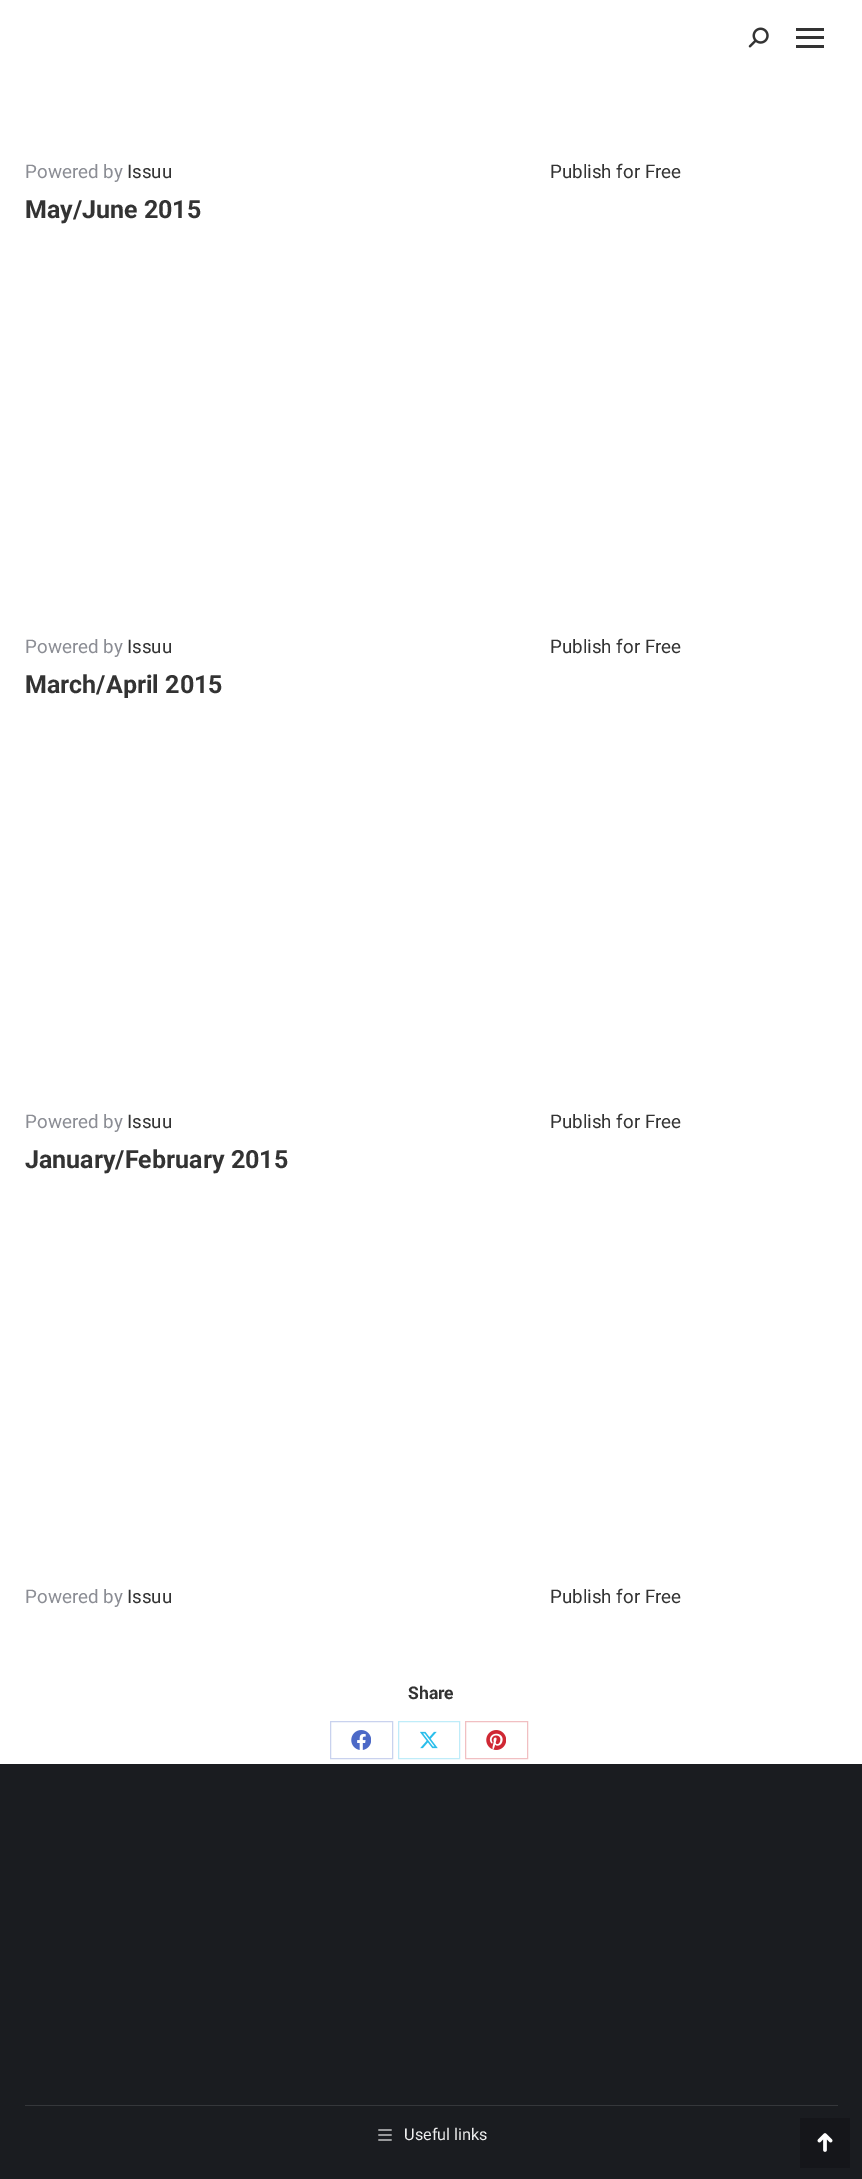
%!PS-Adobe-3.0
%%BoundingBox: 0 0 862 2179
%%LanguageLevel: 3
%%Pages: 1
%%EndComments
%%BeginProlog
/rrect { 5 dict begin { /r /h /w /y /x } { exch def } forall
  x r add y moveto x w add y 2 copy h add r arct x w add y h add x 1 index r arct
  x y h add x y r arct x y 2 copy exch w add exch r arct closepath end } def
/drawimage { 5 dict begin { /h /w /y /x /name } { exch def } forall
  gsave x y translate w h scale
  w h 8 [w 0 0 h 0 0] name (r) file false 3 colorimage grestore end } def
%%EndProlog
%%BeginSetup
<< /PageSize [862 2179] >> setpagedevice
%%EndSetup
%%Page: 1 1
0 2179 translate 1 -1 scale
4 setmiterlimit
1 setgray
0 0 862 2179 rectfill
(images/1.raw) 748 27 21 21 drawimage
0.2 setgray
796 28 28 3 rectfill
796 36 28 3 rectfill
796 45 28 3 rectfill
0.788 0.824 0.933 setrgbcolor
330.5 1721.5 62 37 rectstroke
(images/2.raw) 351 1730 20 20 drawimage
0.749 0.925 0.976 setrgbcolor
398.5 1721.5 61 37 rectstroke
(images/3.raw) 420 1731 18 18 drawimage
0.945 0.749 0.761 setrgbcolor
465.5 1721.5 62 37 rectstroke
(images/4.raw) 486 1730 20 20 drawimage
0.102 0.11 0.125 setrgbcolor
0 1764 862 415 rectfill
0.208 0.216 0.231 setrgbcolor
25 2105 813 1 rectfill
(images/5.raw) 378 2129 14 12 drawimage
0.082 0.086 0.102 setrgbcolor
800 2118 50 50 1 rrect fill
(images/6.raw) 817 2133 16 19 drawimage
/Roboto-Regular [18.75 0 0 -18.75 0 0] selectfont
0.545 0.553 0.58 setrgbcolor
25 178 moveto (Powered by) show
0.2 setgray
127 178 moveto (Issuu) show
550 178 moveto (Publish for Free) show
/Roboto-Bold [25 0 0 -25 0 0] selectfont
25 218 moveto (May/June 2015) show
/Roboto-Regular [18.75 0 0 -18.75 0 0] selectfont
0.545 0.553 0.58 setrgbcolor
25 653 moveto (Powered by) show
0.2 setgray
127 653 moveto (Issuu) show
550 653 moveto (Publish for Free) show
/Roboto-Bold [25 0 0 -25 0 0] selectfont
25 693 moveto (March/April 2015) show
/Roboto-Regular [18.75 0 0 -18.75 0 0] selectfont
0.545 0.553 0.58 setrgbcolor
25 1128 moveto (Powered by) show
0.2 setgray
127 1128 moveto (Issuu) show
550 1128 moveto (Publish for Free) show
/Roboto-Bold [25 0 0 -25 0 0] selectfont
25 1168 moveto (January/February 2015) show
/Roboto-Regular [18.75 0 0 -18.75 0 0] selectfont
0.545 0.553 0.58 setrgbcolor
25 1603 moveto (Powered by) show
0.2 setgray
127 1603 moveto (Issuu) show
550 1603 moveto (Publish for Free) show
/Roboto-Bold [17.5 0 0 -17.5 0 0] selectfont
408 1699 moveto (Share) show
/Roboto-Regular [16.25 0 0 -16.25 0 0] selectfont
0.933 setgray
404 2140 moveto (Useful links) show
showpage
%%EOF
